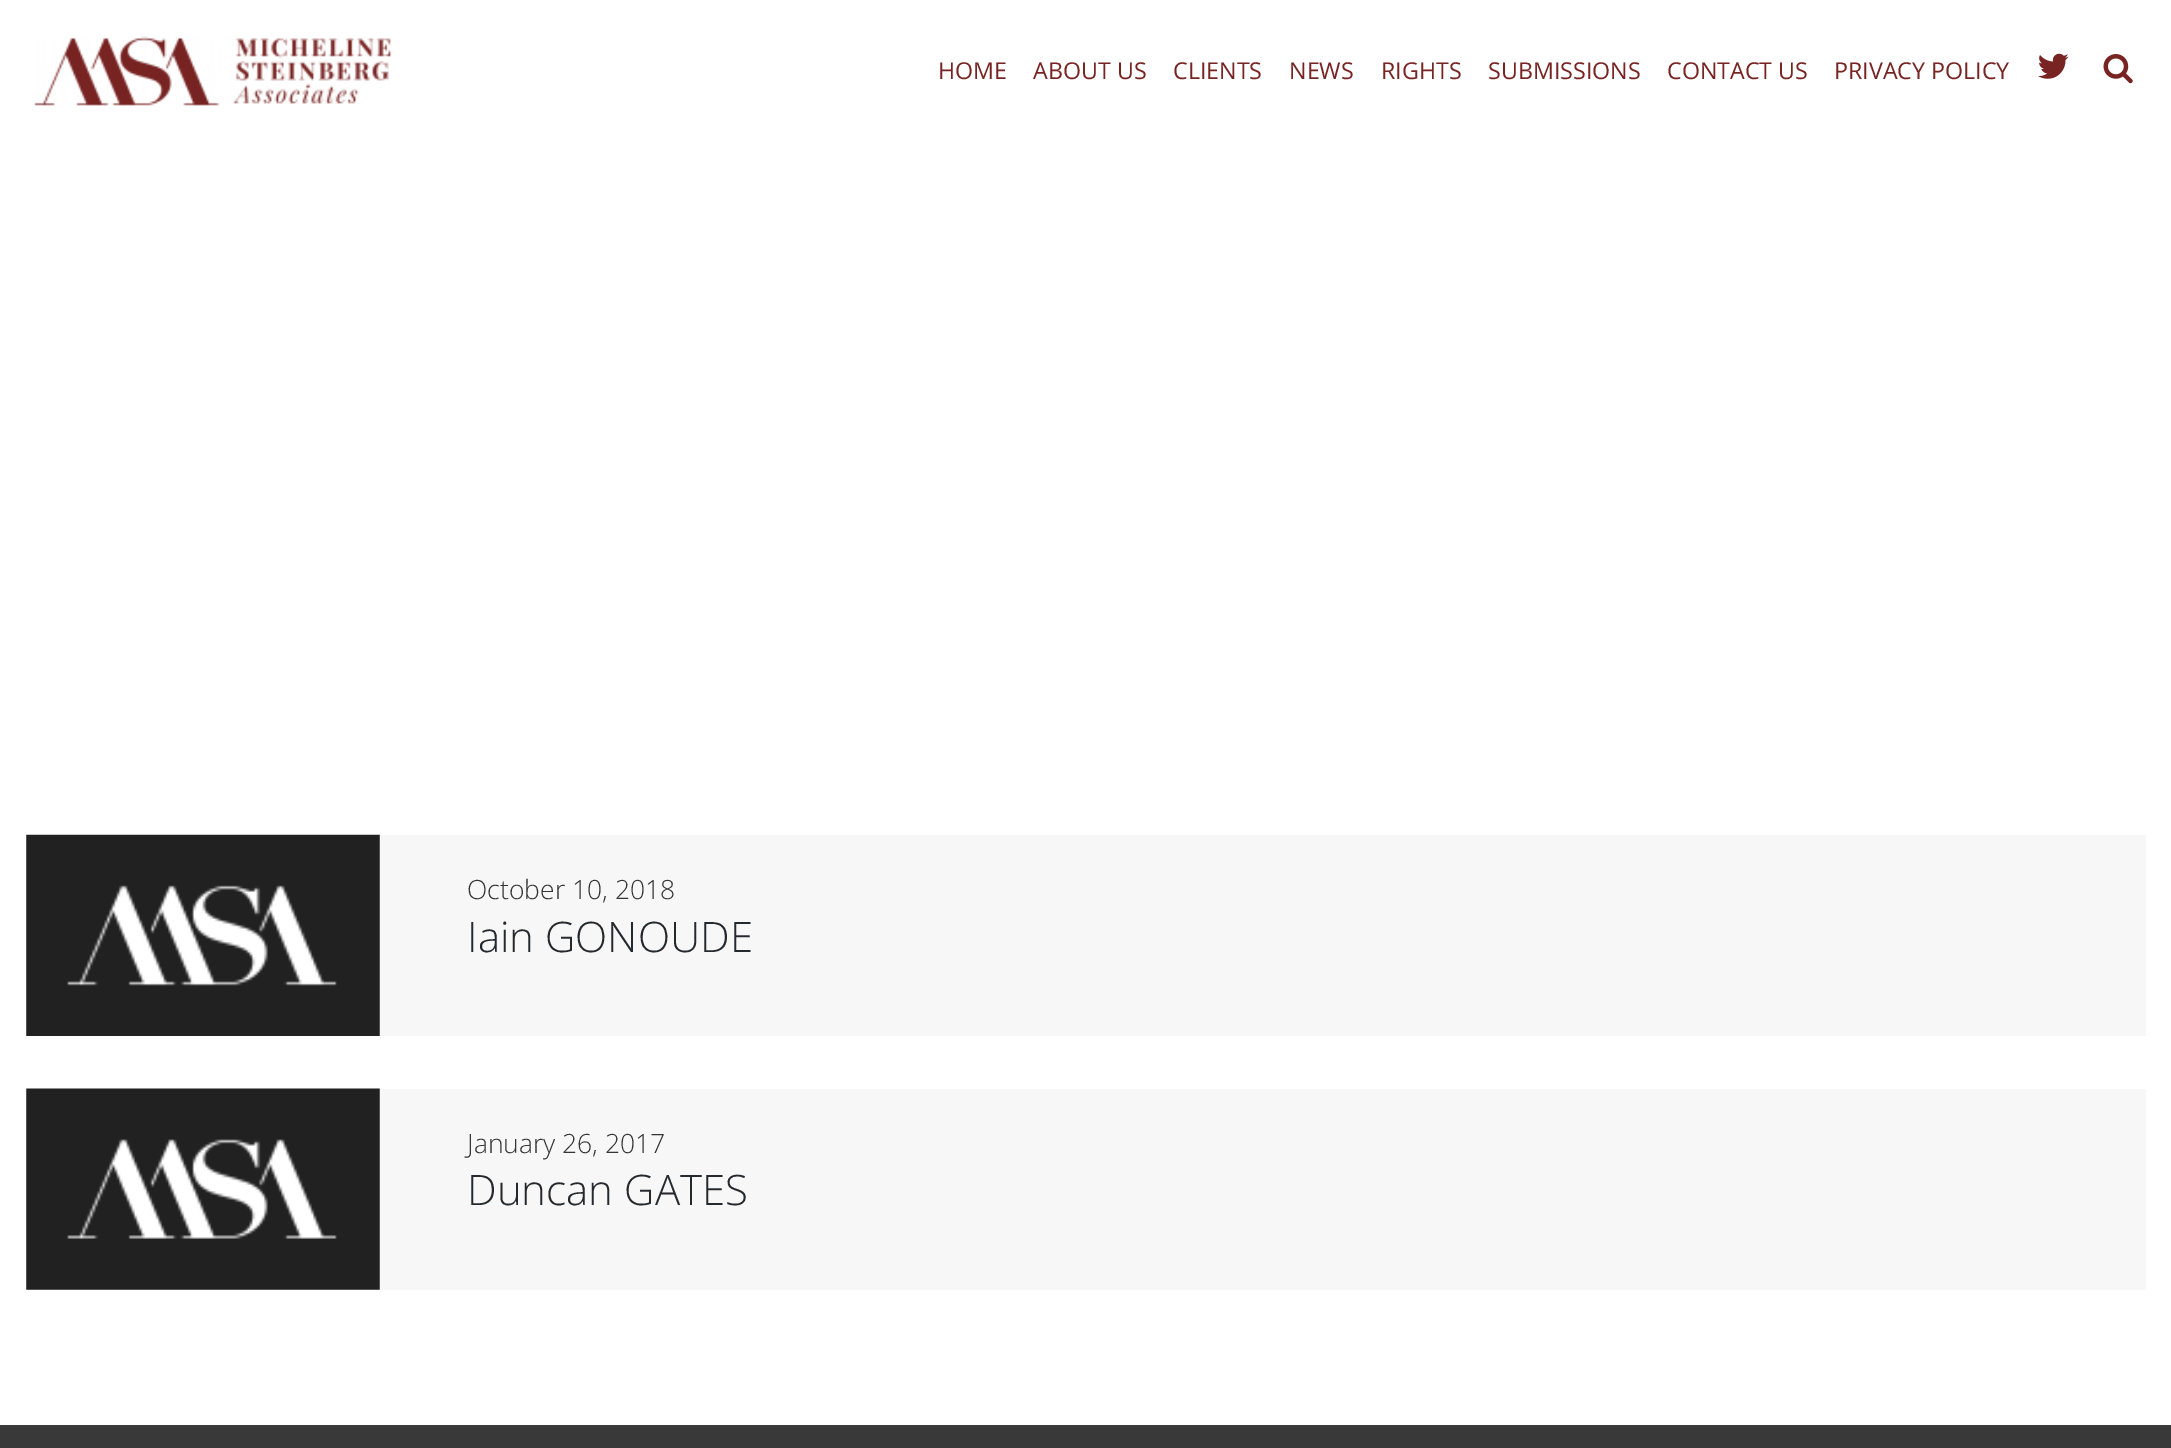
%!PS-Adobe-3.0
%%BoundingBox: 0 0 2171 1448
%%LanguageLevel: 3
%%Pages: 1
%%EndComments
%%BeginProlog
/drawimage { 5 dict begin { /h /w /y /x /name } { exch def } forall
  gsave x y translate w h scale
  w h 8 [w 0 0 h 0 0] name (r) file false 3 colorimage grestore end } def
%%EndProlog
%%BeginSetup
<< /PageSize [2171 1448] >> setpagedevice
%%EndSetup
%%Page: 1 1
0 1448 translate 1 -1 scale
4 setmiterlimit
1 setgray
0 0 2171 1448 rectfill
(images/1.raw) 34 36 357 70 drawimage
(images/2.raw) 2038 53 31 26 drawimage
(images/3.raw) 2103 54 30 30 drawimage
0.969 setgray
26 835 2120 201 rectfill
(images/4.raw) 26 834 354 202 drawimage
26 1089 2120 201 rectfill
(images/5.raw) 26 1088 354 202 drawimage
0.224 setgray
0 1425 2171 23 rectfill
/OpenSans-Regular [23.25 0 0 -23.25 0 0] selectfont
0.471 0.141 0.137 setrgbcolor
938 79 moveto (HOME) show
1033 79 moveto (ABOUT US) show
1173 79 moveto (CLIENTS) show
1289 79 moveto (NEWS) show
1381 79 moveto (RIGHTS) show
1488 79 moveto (SUBMISSIONS) show
1667 79 moveto (CONTACT US) show
1834 79 moveto (PRIVACY POLICY) show
/OpenSans-Light [26.5 0 0 -26.5 0 0] selectfont
0.208 setgray
467 899 moveto (October 10, 2018) show
/OpenSans-Light [42 0 0 -42 0 0] selectfont
0.141 0.161 0.18 setrgbcolor
467 952 moveto (Iain GONOUDE) show
/OpenSans-Light [26.5 0 0 -26.5 0 0] selectfont
0.208 setgray
467 1153 moveto (January 26, 2017) show
/OpenSans-Light [42 0 0 -42 0 0] selectfont
0.141 0.161 0.18 setrgbcolor
467 1205 moveto (Duncan GATES) show
showpage
%%EOF
